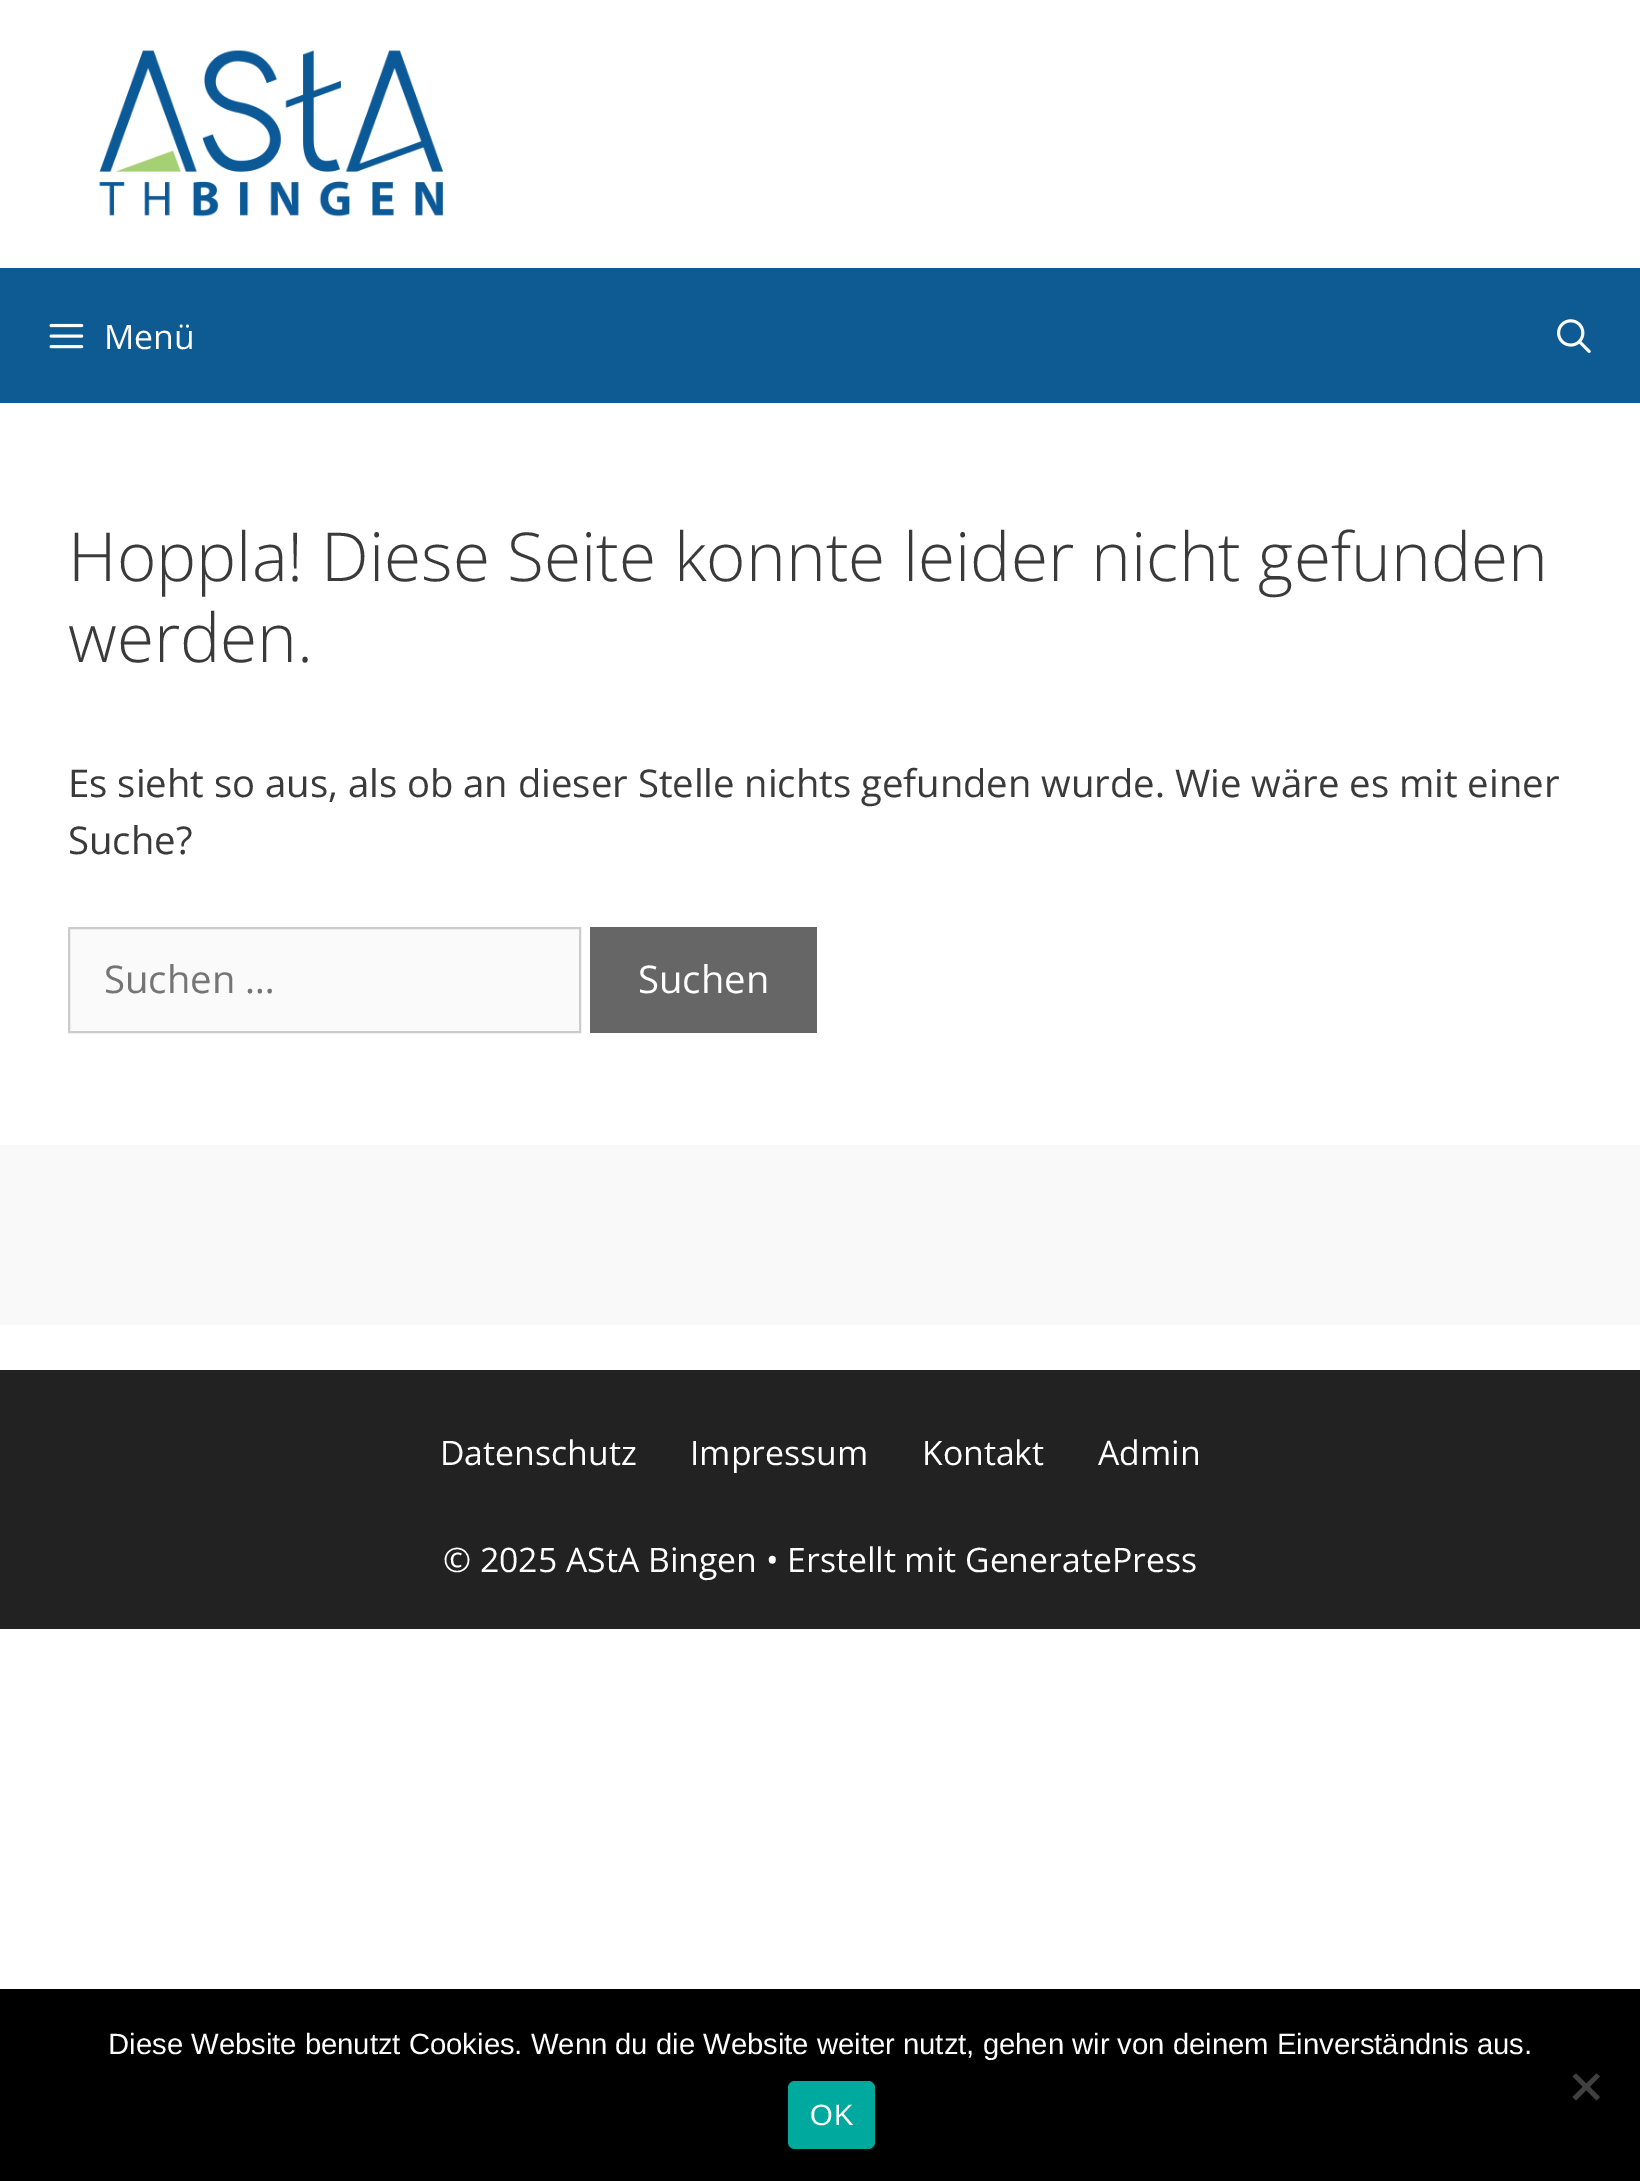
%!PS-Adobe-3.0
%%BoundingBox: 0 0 1640 2181
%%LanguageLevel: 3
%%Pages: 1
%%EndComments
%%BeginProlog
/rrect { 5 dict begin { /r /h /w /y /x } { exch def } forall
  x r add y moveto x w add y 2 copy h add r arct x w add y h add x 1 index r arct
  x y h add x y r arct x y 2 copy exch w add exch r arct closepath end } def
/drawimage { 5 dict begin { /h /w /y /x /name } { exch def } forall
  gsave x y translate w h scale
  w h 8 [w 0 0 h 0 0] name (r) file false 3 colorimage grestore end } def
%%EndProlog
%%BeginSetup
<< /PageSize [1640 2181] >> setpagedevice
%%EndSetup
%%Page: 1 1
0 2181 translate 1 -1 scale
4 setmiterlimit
1 setgray
0 0 1640 2181 rectfill
(images/1.raw) 99 50 345 167 drawimage
0.055 0.357 0.576 setrgbcolor
0 268 1640 135 rectfill
(images/2.raw) 49 323 35 26 drawimage
(images/3.raw) 1557 319 34 34 drawimage
0.98 setgray
newpath 69 928 moveto 580 928 lineto 580 1032 lineto 69 1032 lineto closepath gsave fill grestore
0.8 setgray
2 setlinewidth
stroke
0.4 setgray
590 927 227 106 rectfill
0.976 setgray
0 1145 1640 180 rectfill
0.133 setgray
0 1370 1640 259 rectfill
0 setgray
0 1989 1640 192 rectfill
0.251 setgray
newpath 1596.5 2073.5 moveto 1600 2076.5 lineto 1576 2100.5 lineto 1572.5 2097 lineto closepath fill
newpath 1572.5 2076.5 moveto 1576 2073.5 lineto 1600 2097 lineto 1596.5 2100.5 lineto closepath fill
0 0.663 0.616 setrgbcolor
788 2081 87 68 7 rrect fill
/OpenSans-Regular [33.75 0 0 -33.75 0 0] selectfont
1 setgray
104 349 moveto (Menü) show
/OpenSans-Light [67.5 0 0 -67.5 0 0] selectfont
0.227 setgray
68 581 moveto (Hoppla! Diese Seite konnte leider nicht gefunden) show
68 662 moveto (werden.) show
/OpenSans-Regular [38.25 0 0 -38.25 0 0] selectfont
68 797 moveto (Es sieht so aus, als ob an dieser Stelle nichts gefunden wurde. Wie wäre es mit einer) show
68 854 moveto (Suche?) show
0.459 setgray
104 993 moveto (Suchen …) show
1 setgray
638 993 moveto (Suchen) show
/OpenSans-Regular [33.75 0 0 -33.75 0 0] selectfont
440 1465 moveto (Datenschutz) show
690 1465 moveto (Impressum) show
922 1465 moveto (Kontakt) show
1098 1465 moveto (Admin) show
443 1572 moveto (© 2025 AStA Bingen • Erstellt mit GeneratePress) show
/LiberationSans-Regular [29.25 0 0 -29.25 0 0] selectfont
108 2054 moveto (Diese Website benutzt Cookies. Wenn du die Website weiter nutzt, gehen wir von deinem Einverständnis aus.) show
810 2125 moveto 1 0 (OK) ashow
showpage
%%EOF
